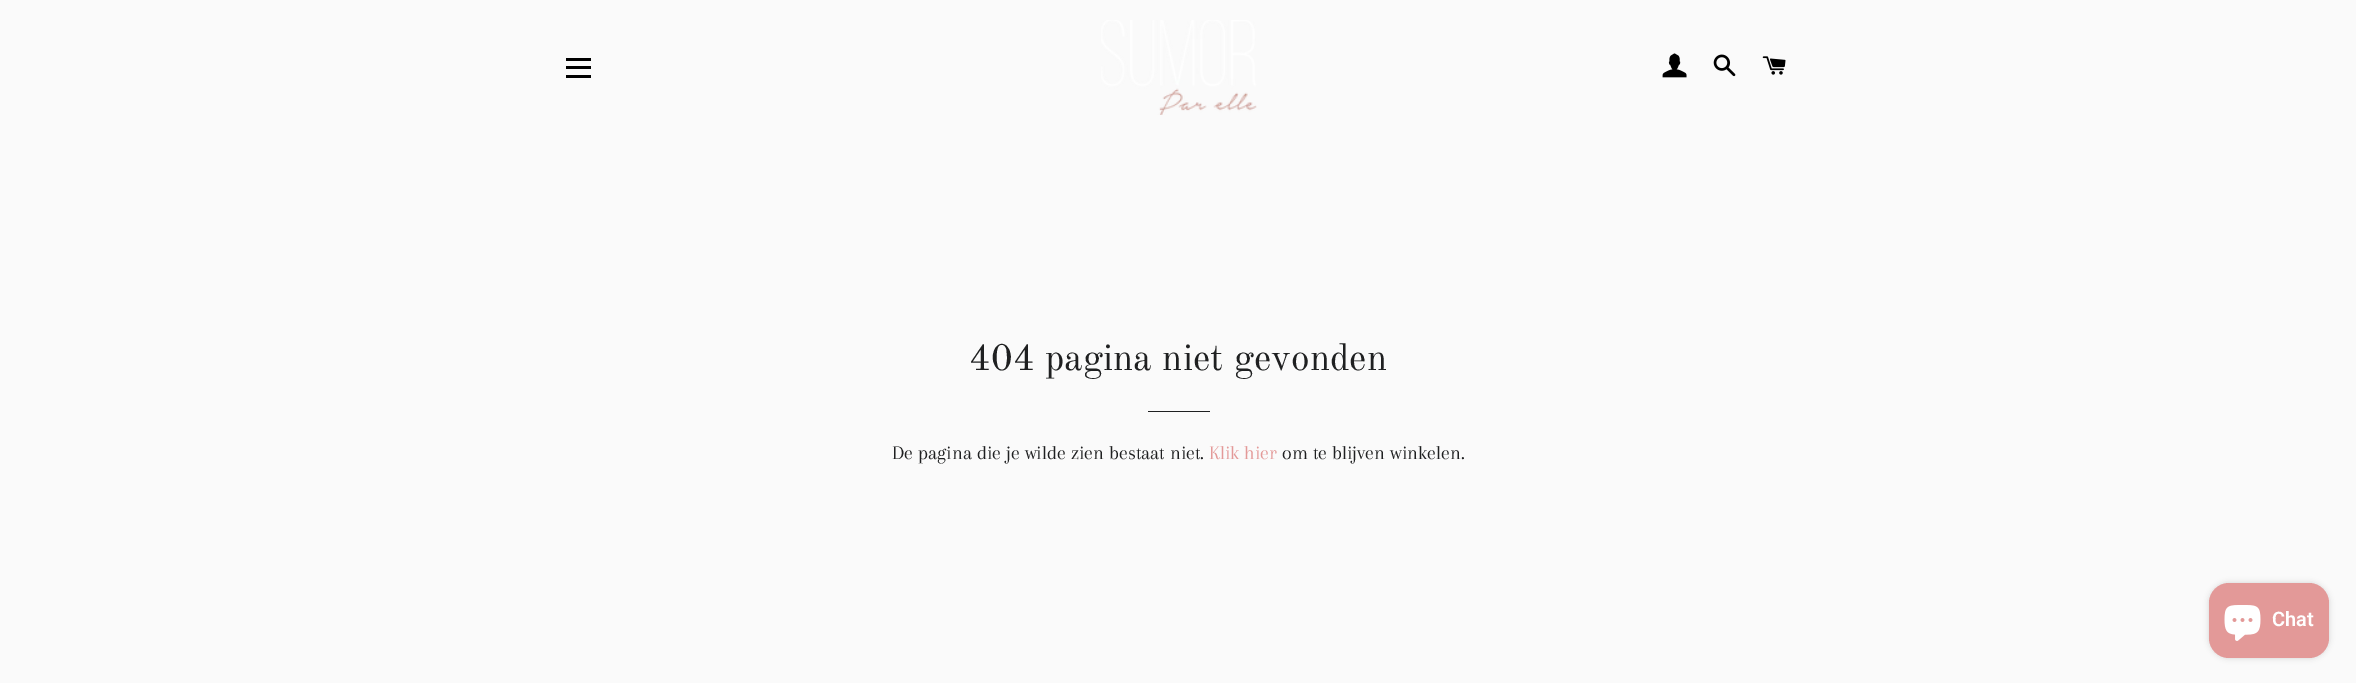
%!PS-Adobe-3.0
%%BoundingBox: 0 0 2356 683
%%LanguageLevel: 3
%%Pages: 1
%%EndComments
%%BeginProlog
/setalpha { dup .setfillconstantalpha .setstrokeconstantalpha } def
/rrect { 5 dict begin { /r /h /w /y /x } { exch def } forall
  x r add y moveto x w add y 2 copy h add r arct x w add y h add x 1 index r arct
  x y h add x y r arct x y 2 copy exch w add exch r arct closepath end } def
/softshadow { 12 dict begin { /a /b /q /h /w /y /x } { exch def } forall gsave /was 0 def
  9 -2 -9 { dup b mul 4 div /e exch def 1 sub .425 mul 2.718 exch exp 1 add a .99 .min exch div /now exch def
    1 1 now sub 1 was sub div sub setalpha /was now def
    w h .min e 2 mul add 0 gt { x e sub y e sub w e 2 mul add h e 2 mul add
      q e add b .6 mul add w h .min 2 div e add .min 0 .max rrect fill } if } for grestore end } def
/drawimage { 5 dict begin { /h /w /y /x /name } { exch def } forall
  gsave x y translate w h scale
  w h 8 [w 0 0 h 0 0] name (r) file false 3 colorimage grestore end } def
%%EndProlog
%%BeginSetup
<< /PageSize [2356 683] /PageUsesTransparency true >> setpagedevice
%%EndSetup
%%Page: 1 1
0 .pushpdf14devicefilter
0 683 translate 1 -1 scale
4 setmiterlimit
0.98 setgray
0 0 2356 683 rectfill
0 setgray
566 58 25 3 rectfill
566 66 25 3 rectfill
566 75 25 3 rectfill
(images/1.raw) 1101 20 156 95 drawimage
(images/2.raw) 1662 53 25 25 drawimage
(images/3.raw) 1713 54 23 23 drawimage
(images/4.raw) 1762 56 24 19 drawimage
0.122 0.125 0.129 setrgbcolor
1148 411 62 1 rectfill
0 setgray
2209 583 120 75 20 3 0.15 softshadow
0.89 0.6 0.596 setrgbcolor
2209 583 120 75 20 rrect fill
(images/5.raw) 2224 605 37 36 drawimage
/OldStandardTT-Regular [37.5 0 0 -37.5 0 0] selectfont
0.122 0.125 0.129 setrgbcolor
969 370 moveto (404 pagina niet gevonden) show
/Arapey-Regular [20 0 0 -20 0 0] selectfont
892 459 moveto (De pagina die je wilde zien bestaat niet.) show
0.89 0.6 0.596 setrgbcolor
1209 459 moveto (Klik hier) show
0.122 0.125 0.129 setrgbcolor
1282 459 moveto (om te blijven winkelen.) show
/Roboto-SemiBold [20 0 0 -20 0 0] selectfont
1 setgray
2272 626 moveto (Chat) show
.poppdf14devicefilter showpage
%%EOF
